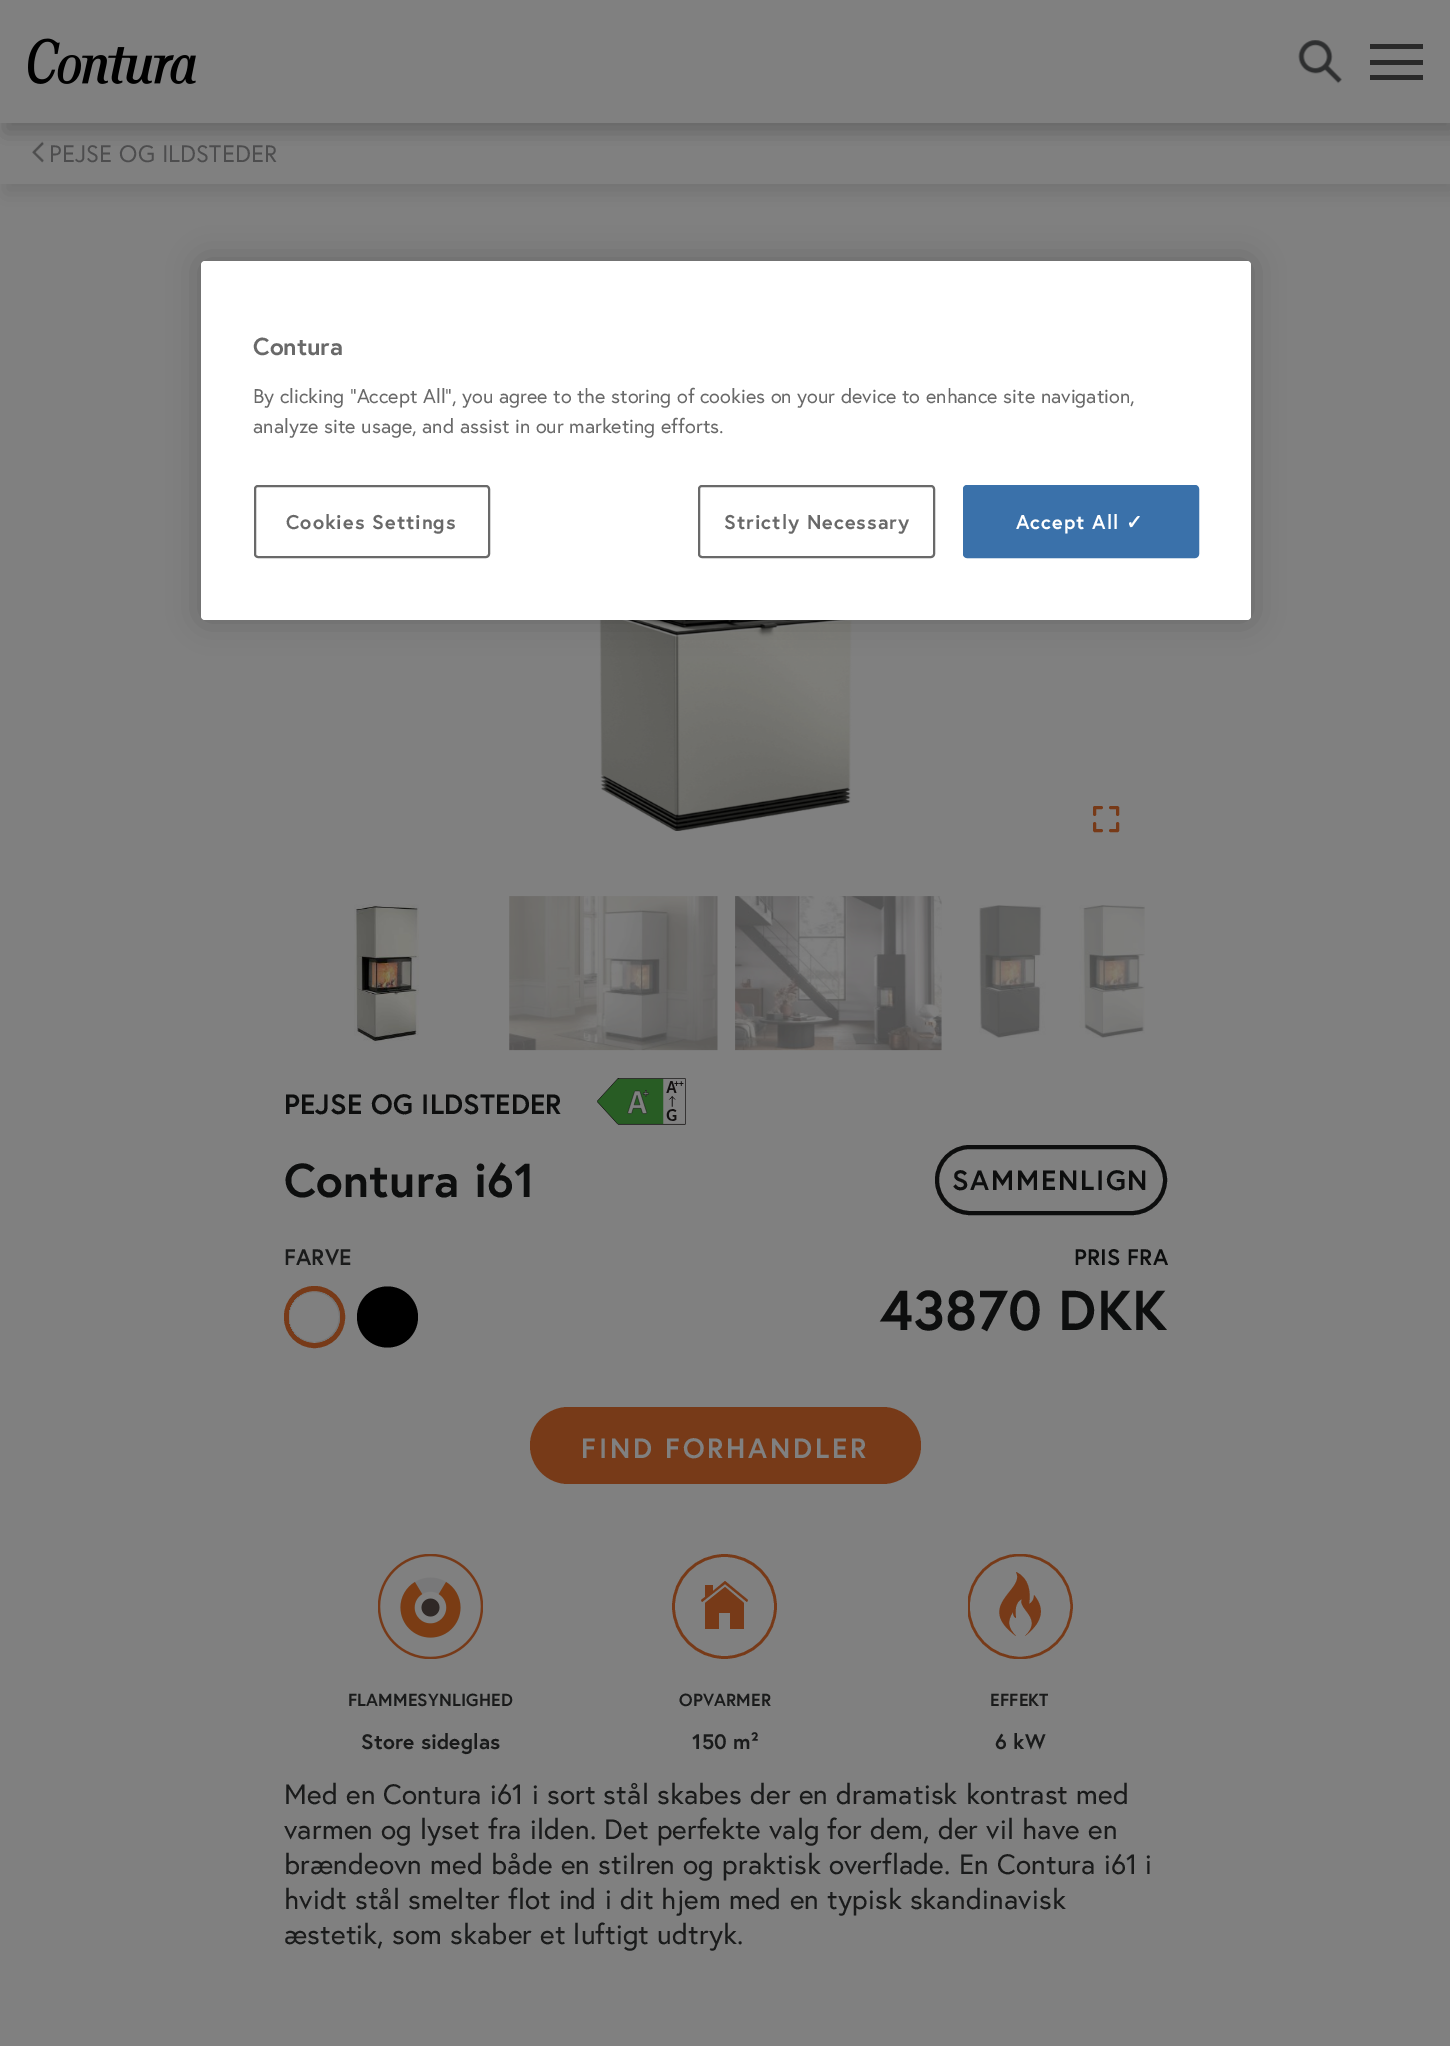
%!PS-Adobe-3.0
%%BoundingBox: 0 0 1450 2046
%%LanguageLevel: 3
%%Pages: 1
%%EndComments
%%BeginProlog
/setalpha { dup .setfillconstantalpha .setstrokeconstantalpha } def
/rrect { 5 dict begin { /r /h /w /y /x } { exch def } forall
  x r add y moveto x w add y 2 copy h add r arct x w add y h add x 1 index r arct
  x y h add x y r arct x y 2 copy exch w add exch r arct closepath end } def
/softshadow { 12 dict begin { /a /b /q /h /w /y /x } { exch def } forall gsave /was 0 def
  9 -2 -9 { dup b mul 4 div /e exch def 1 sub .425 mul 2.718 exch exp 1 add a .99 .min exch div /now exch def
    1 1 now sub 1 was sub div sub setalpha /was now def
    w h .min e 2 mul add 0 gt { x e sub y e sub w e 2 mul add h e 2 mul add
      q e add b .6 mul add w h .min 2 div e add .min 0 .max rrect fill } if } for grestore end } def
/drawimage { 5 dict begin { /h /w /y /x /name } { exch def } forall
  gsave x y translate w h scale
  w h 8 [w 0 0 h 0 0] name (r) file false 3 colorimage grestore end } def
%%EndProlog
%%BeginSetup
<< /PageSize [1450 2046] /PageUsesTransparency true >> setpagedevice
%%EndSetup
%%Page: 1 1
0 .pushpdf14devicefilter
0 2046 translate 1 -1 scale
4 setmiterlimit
0.502 setgray
0 0 1450 2046 rectfill
0.098 setgray
4 133 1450 61 0 10.5 0.14 softshadow
0.502 setgray
0 123 1450 61 rectfill
(images/3.raw) 32 141 12 22 drawimage
0.098 setgray
4 11 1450 122 0 10.5 0.14 softshadow
4 11 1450 122 0 10.5 0.14 softshadow
0.502 setgray
0 0 1450 123 rectfill
(images/1.raw) 28 38 168 46 drawimage
(images/2.raw) 1298 40 44 44 drawimage
0.165 setgray
1370 44 53 5 rectfill
1370 60 53 5 rectfill
1370 75 53 5 rectfill
(images/4.raw) 599 620 253 211 drawimage
0.467 0.227 0.094 setrgbcolor
2.9 setlinewidth
1 setlinecap
1 setlinejoin
newpath 1101.5 807.5 moveto 1094.5 807.5 lineto 1094.5 814.5 lineto 1117.5 814.5 moveto 1117.5 807.5 lineto 1110.5 807.5 lineto 1110.5 830.5 moveto 1117.5 830.5 lineto 1117.5 823.5 lineto 1094.5 823.5 moveto 1094.5 830.5 lineto 1101.5 830.5 lineto stroke
(images/5.raw) 354 904 65 140 drawimage
(images/6.raw) 509 896 209 155 drawimage
(images/7.raw) 735 896 207 155 drawimage
(images/8.raw) 979 905 166 133 drawimage
(images/9.raw) 597 1078 89 47 drawimage
0.051 0.055 0.055 setrgbcolor
4 setlinewidth
0 setlinecap
0 setlinejoin
937 1147 228 66 33 rrect stroke
0.467 0.227 0.094 setrgbcolor
5 setlinewidth
286.5 1288.5 56 57 28 rrect stroke
0.502 setgray
newpath 314 1292 moveto 347 1292 348 1341 315 1342 curveto 281 1343 281 1292 314 1292 curveto closepath fill
gsave
289 1292 51 50 25 rrect clip newpath
0.455 setgray
1.1 setlinewidth
newpath 314 1317 25.5 0 360 arc closepath stroke
grestore
0 setgray
newpath 387.5 1317 30.5 0 360 arc closepath fill
0.467 0.227 0.094 setrgbcolor
530 1407 391 77 38.5 rrect fill
(images/10.raw) 378 1554 105 105 drawimage
newpath 725 1587 moveto 744 1603 lineto 744 1629 lineto 730 1629 lineto 730 1613 lineto 719 1613 lineto 719 1629 lineto 705 1629 lineto 705 1603 lineto closepath 725 1581 moveto 748 1600 lineto 747 1602 lineto 725 1584 lineto 702 1602 lineto 701 1600 lineto 705 1597 lineto 705 1585 lineto 713 1585 lineto 713 1591 lineto closepath fill
2.7 setlinewidth
newpath 724.5 1606.5 51 0 360 arc closepath stroke
newpath 1034 1595 moveto 1034 1602 1029 1604 1029 1604 curveto 1031 1592 1029 1578 1016 1572 curveto 1026 1590 974 1605 1016 1636 curveto 1008 1628 1007 1621 1013 1612 curveto 1013 1617 1016 1618 1016 1618 curveto 1015 1611 1015 1602 1022 1599 curveto 1017 1609 1044 1618 1025 1636 curveto 1040 1624 1047 1611 1034 1595 curveto fill
gsave
968 1554 105 105 rectclip
2.5 setlinewidth
newpath 1020 1606.5 51.5 0 360 arc closepath stroke
grestore
0 setgray
201 261 1050 359 4 16 0.2 softshadow
1 setgray
201 261 1050 359 4 rrect fill
0.412 setgray
2 setlinewidth
255 486 234 71 3 rrect stroke
699 486 235 71 3 rrect stroke
0.227 0.443 0.667 setrgbcolor
964 486 234 71 3 rrect gsave fill grestore
stroke
/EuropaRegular-Regular [23.75 0 0 -23.75 0 0] selectfont
0.302 0.302 0.306 setrgbcolor
49 162 moveto 0.18 0 (PEJSE OG ILDSTEDER) ashow
/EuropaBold-Bold [28 0 0 -28 0 0] selectfont
0.051 0.055 0.055 setrgbcolor
284 1114 moveto 0.18 0 (PEJSE OG ILDSTEDER) ashow
/EuropaBold-Bold [47.5 0 0 -47.5 0 0] selectfont
284 1197 moveto 0.18 0 (Contura i61) ashow
/EuropaBold-Bold [28 0 0 -28 0 0] selectfont
952 1190 moveto 1.75 0 (SAMMENLIGN) ashow
/EuropaBold-Bold [22.5 0 0 -22.5 0 0] selectfont
0.102 0.106 0.106 setrgbcolor
284 1265 moveto 0.18 0 (FARVE) ashow
0.051 0.055 0.055 setrgbcolor
1074 1265 moveto 0.18 0 (PRIS FRA) ashow
/EuropaBold-Bold [56 0 0 -56 0 0] selectfont
880 1330 moveto 0.18 0 (43870 DKK) ashow
/EuropaBold-Bold [28 0 0 -28 0 0] selectfont
0.502 setgray
581 1458 moveto 2.75 0 (FIND FORHANDLER) ashow
/EuropaBold-Bold [17.5 0 0 -17.5 0 0] selectfont
0.102 0.106 0.106 setrgbcolor
348 1706 moveto 0.18 0 (FLAMMESYNLIGHED) ashow
/EuropaBold-Bold [21 0 0 -21 0 0] selectfont
361 1749 moveto 0.18 0 (Store sideglas) ashow
/EuropaBold-Bold [17.5 0 0 -17.5 0 0] selectfont
679 1706 moveto 0.18 0 (OPVARMER) ashow
/EuropaBold-Bold [21 0 0 -21 0 0] selectfont
692 1749 moveto 0.18 0 (150 m²) ashow
/EuropaBold-Bold [17.5 0 0 -17.5 0 0] selectfont
990 1706 moveto 0.18 0 (EFFEKT) ashow
/EuropaBold-Bold [21 0 0 -21 0 0] selectfont
995 1749 moveto 0.18 0 (6 kW) ashow
/EuropaRegular-Regular [28 0 0 -28 0 0] selectfont
284 1804 moveto 0.18 0 (Med en Contura i61 i sort stål skabes der en dramatisk kontrast med) ashow
284 1839 moveto 0.18 0 (varmen og lyset fra ilden. Det perfekte valg for dem, der vil have en) ashow
284 1874 moveto 0.18 0 (brændeovn med både en stilren og praktisk overflade. En Contura i61 i) ashow
284 1909 moveto 0.18 0 (hvidt stål smelter flot ind i dit hjem med en typisk skandinavisk) ashow
284 1944 moveto 0.18 0 (æstetik, som skaber et luftigt udtryk.) ashow
/EuropaBold-Bold [24.5 0 0 -24.5 0 0] selectfont
0.412 setgray
253 355 moveto (Contura) show
/EuropaRegular-Regular [19.9 0 0 -19.9 0 0] selectfont
253 403 moveto (By clicking “Accept All”, you agree to the storing of cookies on your device to enhance site navigation,) show
253 433 moveto (analyze site usage, and assist in our marketing efforts.) show
/EuropaBold-Bold [19.9 0 0 -19.9 0 0] selectfont
286 529 moveto 1 0 (Cookies Settings) ashow
724 529 moveto 1 0 (Strictly Necessary) ashow
1 setgray
1016 529 moveto 1 0 (Accept All) ashow
/DejaVuSans-Bold [19.9 0 0 -19.9 0 0] selectfont
1126 529 moveto 1 0 (✓) ashow
.poppdf14devicefilter showpage
%%EOF
